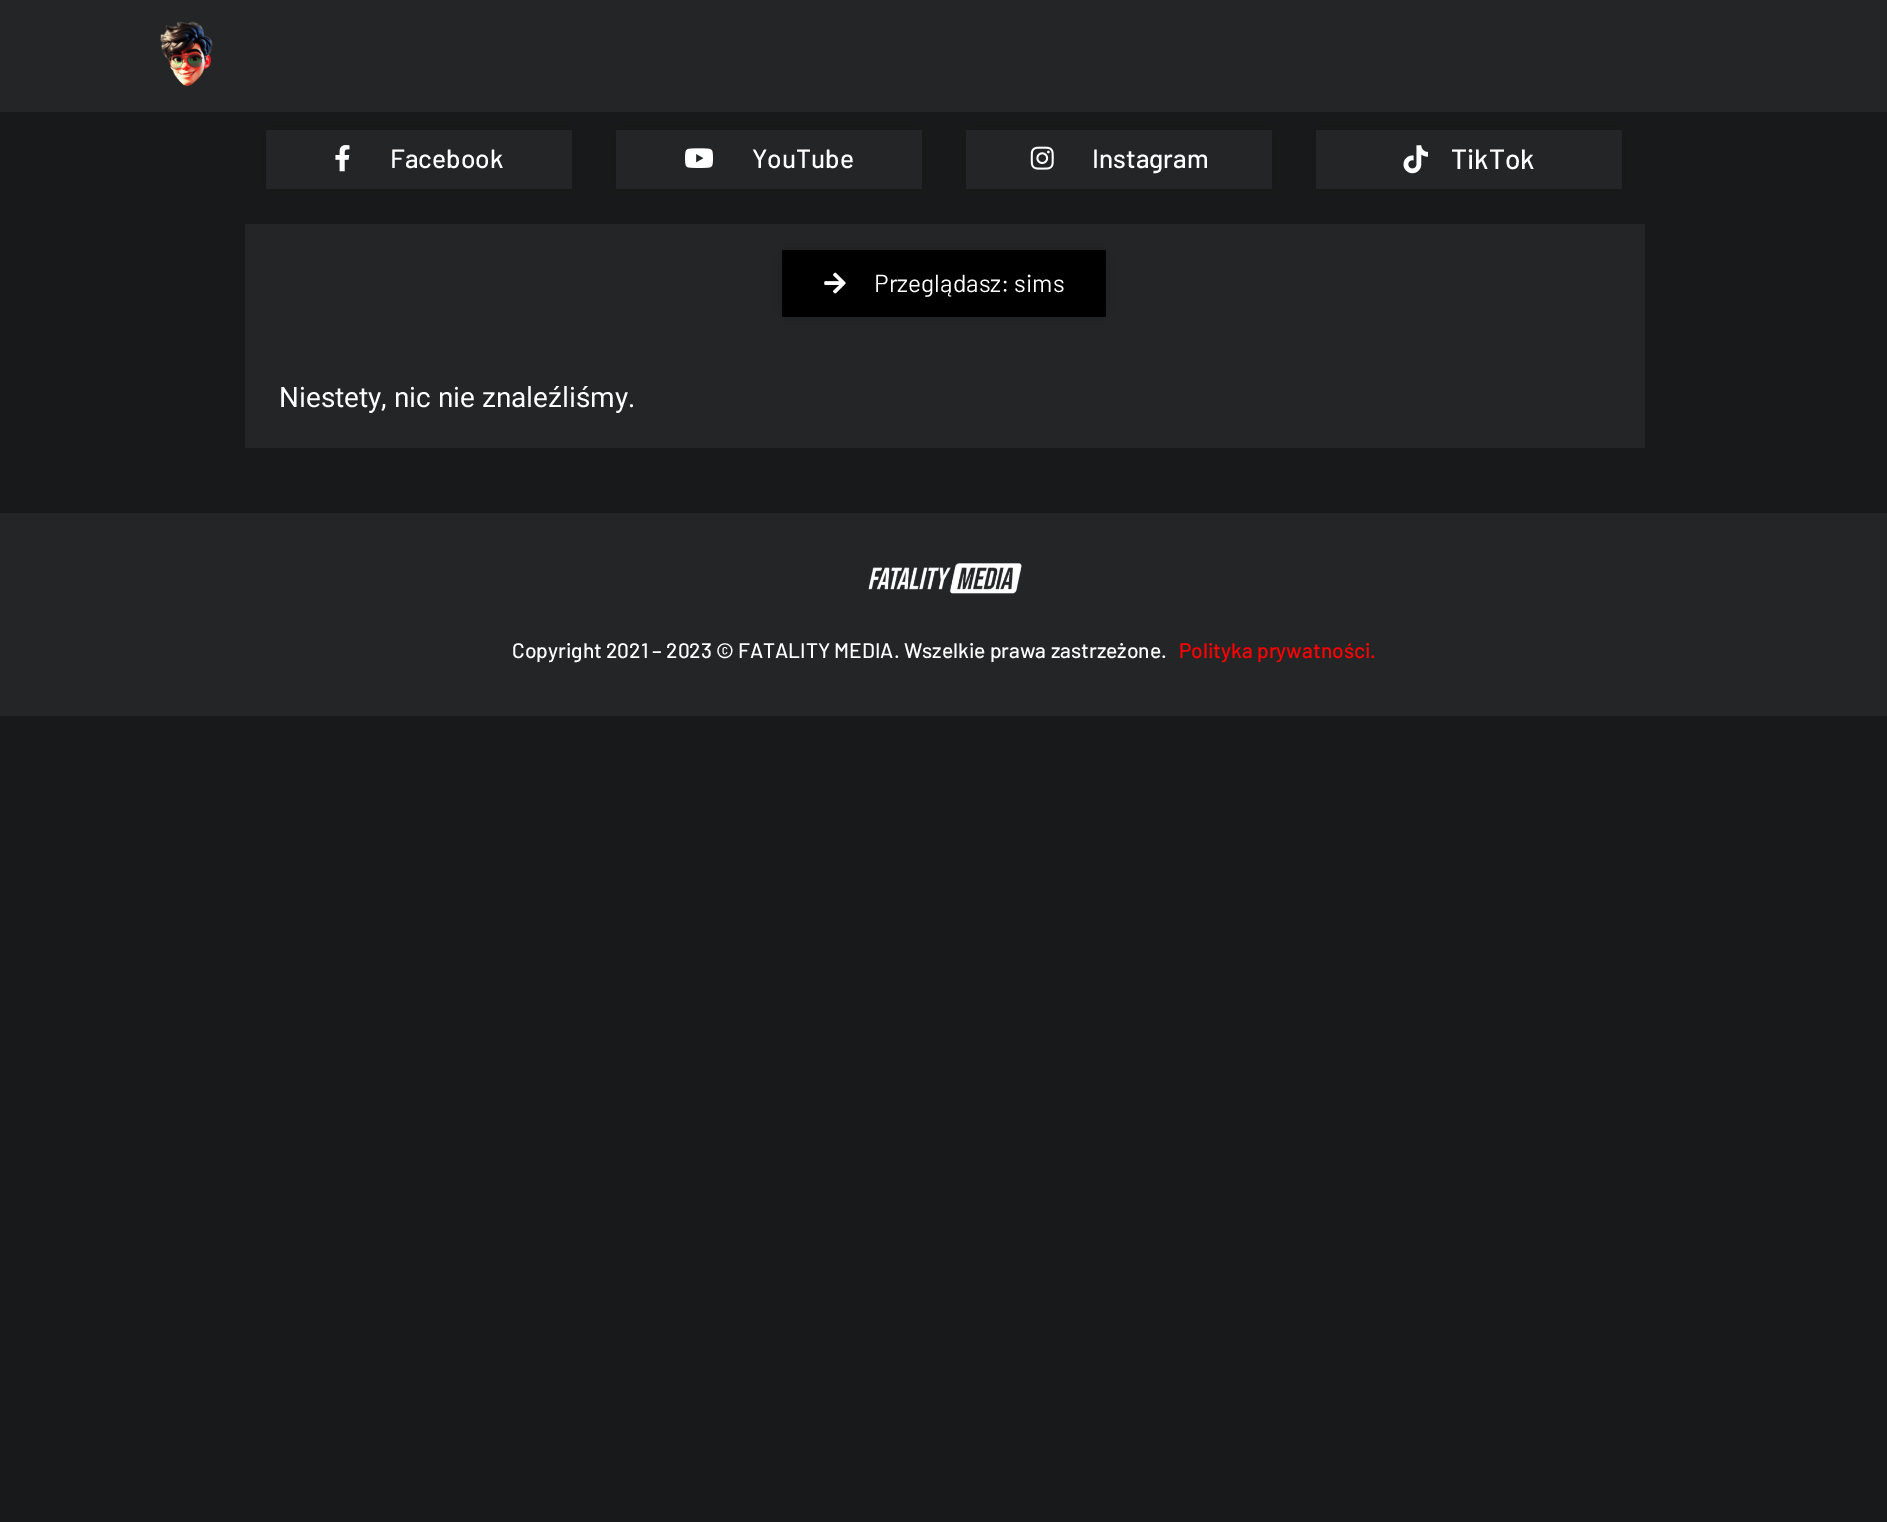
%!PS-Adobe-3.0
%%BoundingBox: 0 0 1887 1522
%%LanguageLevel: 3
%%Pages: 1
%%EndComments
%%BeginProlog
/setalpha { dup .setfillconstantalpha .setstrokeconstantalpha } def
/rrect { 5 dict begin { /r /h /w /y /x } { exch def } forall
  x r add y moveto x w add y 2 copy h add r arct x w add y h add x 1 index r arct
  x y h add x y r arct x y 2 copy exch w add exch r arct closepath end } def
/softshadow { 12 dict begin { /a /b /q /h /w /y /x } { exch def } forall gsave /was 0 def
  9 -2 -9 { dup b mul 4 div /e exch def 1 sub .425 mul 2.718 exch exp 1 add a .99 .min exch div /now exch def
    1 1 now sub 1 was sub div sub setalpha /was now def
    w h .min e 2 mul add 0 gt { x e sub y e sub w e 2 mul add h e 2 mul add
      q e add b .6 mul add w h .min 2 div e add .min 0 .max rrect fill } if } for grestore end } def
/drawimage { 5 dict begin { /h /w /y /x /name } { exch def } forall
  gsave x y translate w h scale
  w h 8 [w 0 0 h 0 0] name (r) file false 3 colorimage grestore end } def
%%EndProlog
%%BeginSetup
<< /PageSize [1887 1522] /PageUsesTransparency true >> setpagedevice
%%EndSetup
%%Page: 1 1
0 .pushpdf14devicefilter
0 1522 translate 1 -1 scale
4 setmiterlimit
0.094 0.098 0.102 setrgbcolor
0 0 1887 1522 rectfill
0 setgray
273 137 292 45 0 9 0.5 softshadow
623 137 292 45 0 9 0.5 softshadow
973 137 292 45 0 9 0.5 softshadow
1323 137 292 45 0 9 0.5 softshadow
0.141 0.145 0.149 setrgbcolor
0 0 1887 112 rectfill
(images/1.raw) 160 21 53 65 drawimage
266 130 306 59 rectfill
(images/2.raw) 335 145 15 27 drawimage
616 130 306 59 rectfill
(images/3.raw) 685 148 28 20 drawimage
966 130 306 59 rectfill
(images/4.raw) 1030 146 24 24 drawimage
1316 130 306 59 rectfill
(images/5.raw) 1403 145 25 29 drawimage
245 224 1400 224 rectfill
0 setgray
789 257 310 53 0 9 0.35 softshadow
782 250 324 67 rectfill
(images/6.raw) 824 272 22 22 drawimage
0.141 0.145 0.149 setrgbcolor
0 513 1887 203 rectfill
(images/7.raw) 868 563 154 31 drawimage
/Barlow-Medium [26.25 0 0 -26.25 0 0] selectfont
1 setgray
390 168 moveto (Facebook) show
752 168 moveto (YouTube) show
1092 168 moveto (Instagram) show
/Barlow-Medium [28 0 0 -28 0 0] selectfont
1451 169 moveto (TikTok) show
/Barlow-Regular [24.5 0 0 -24.5 0 0] selectfont
874 292 moveto (Przeglądasz: sims) show
/Roboto-Regular [28 0 0 -28 0 0] selectfont
279 407 moveto (Niestety, nic nie znaleźliśmy.) show
/Barlow-Medium [21 0 0 -21 0 0] selectfont
512 658 moveto (Copyright 2021 – 2023 © FATALITY MEDIA. Wszelkie prawa zastrzeżone.) show
1 0 0 setrgbcolor
1179 658 moveto (Polityka prywatności.) show
.poppdf14devicefilter showpage
%%EOF
